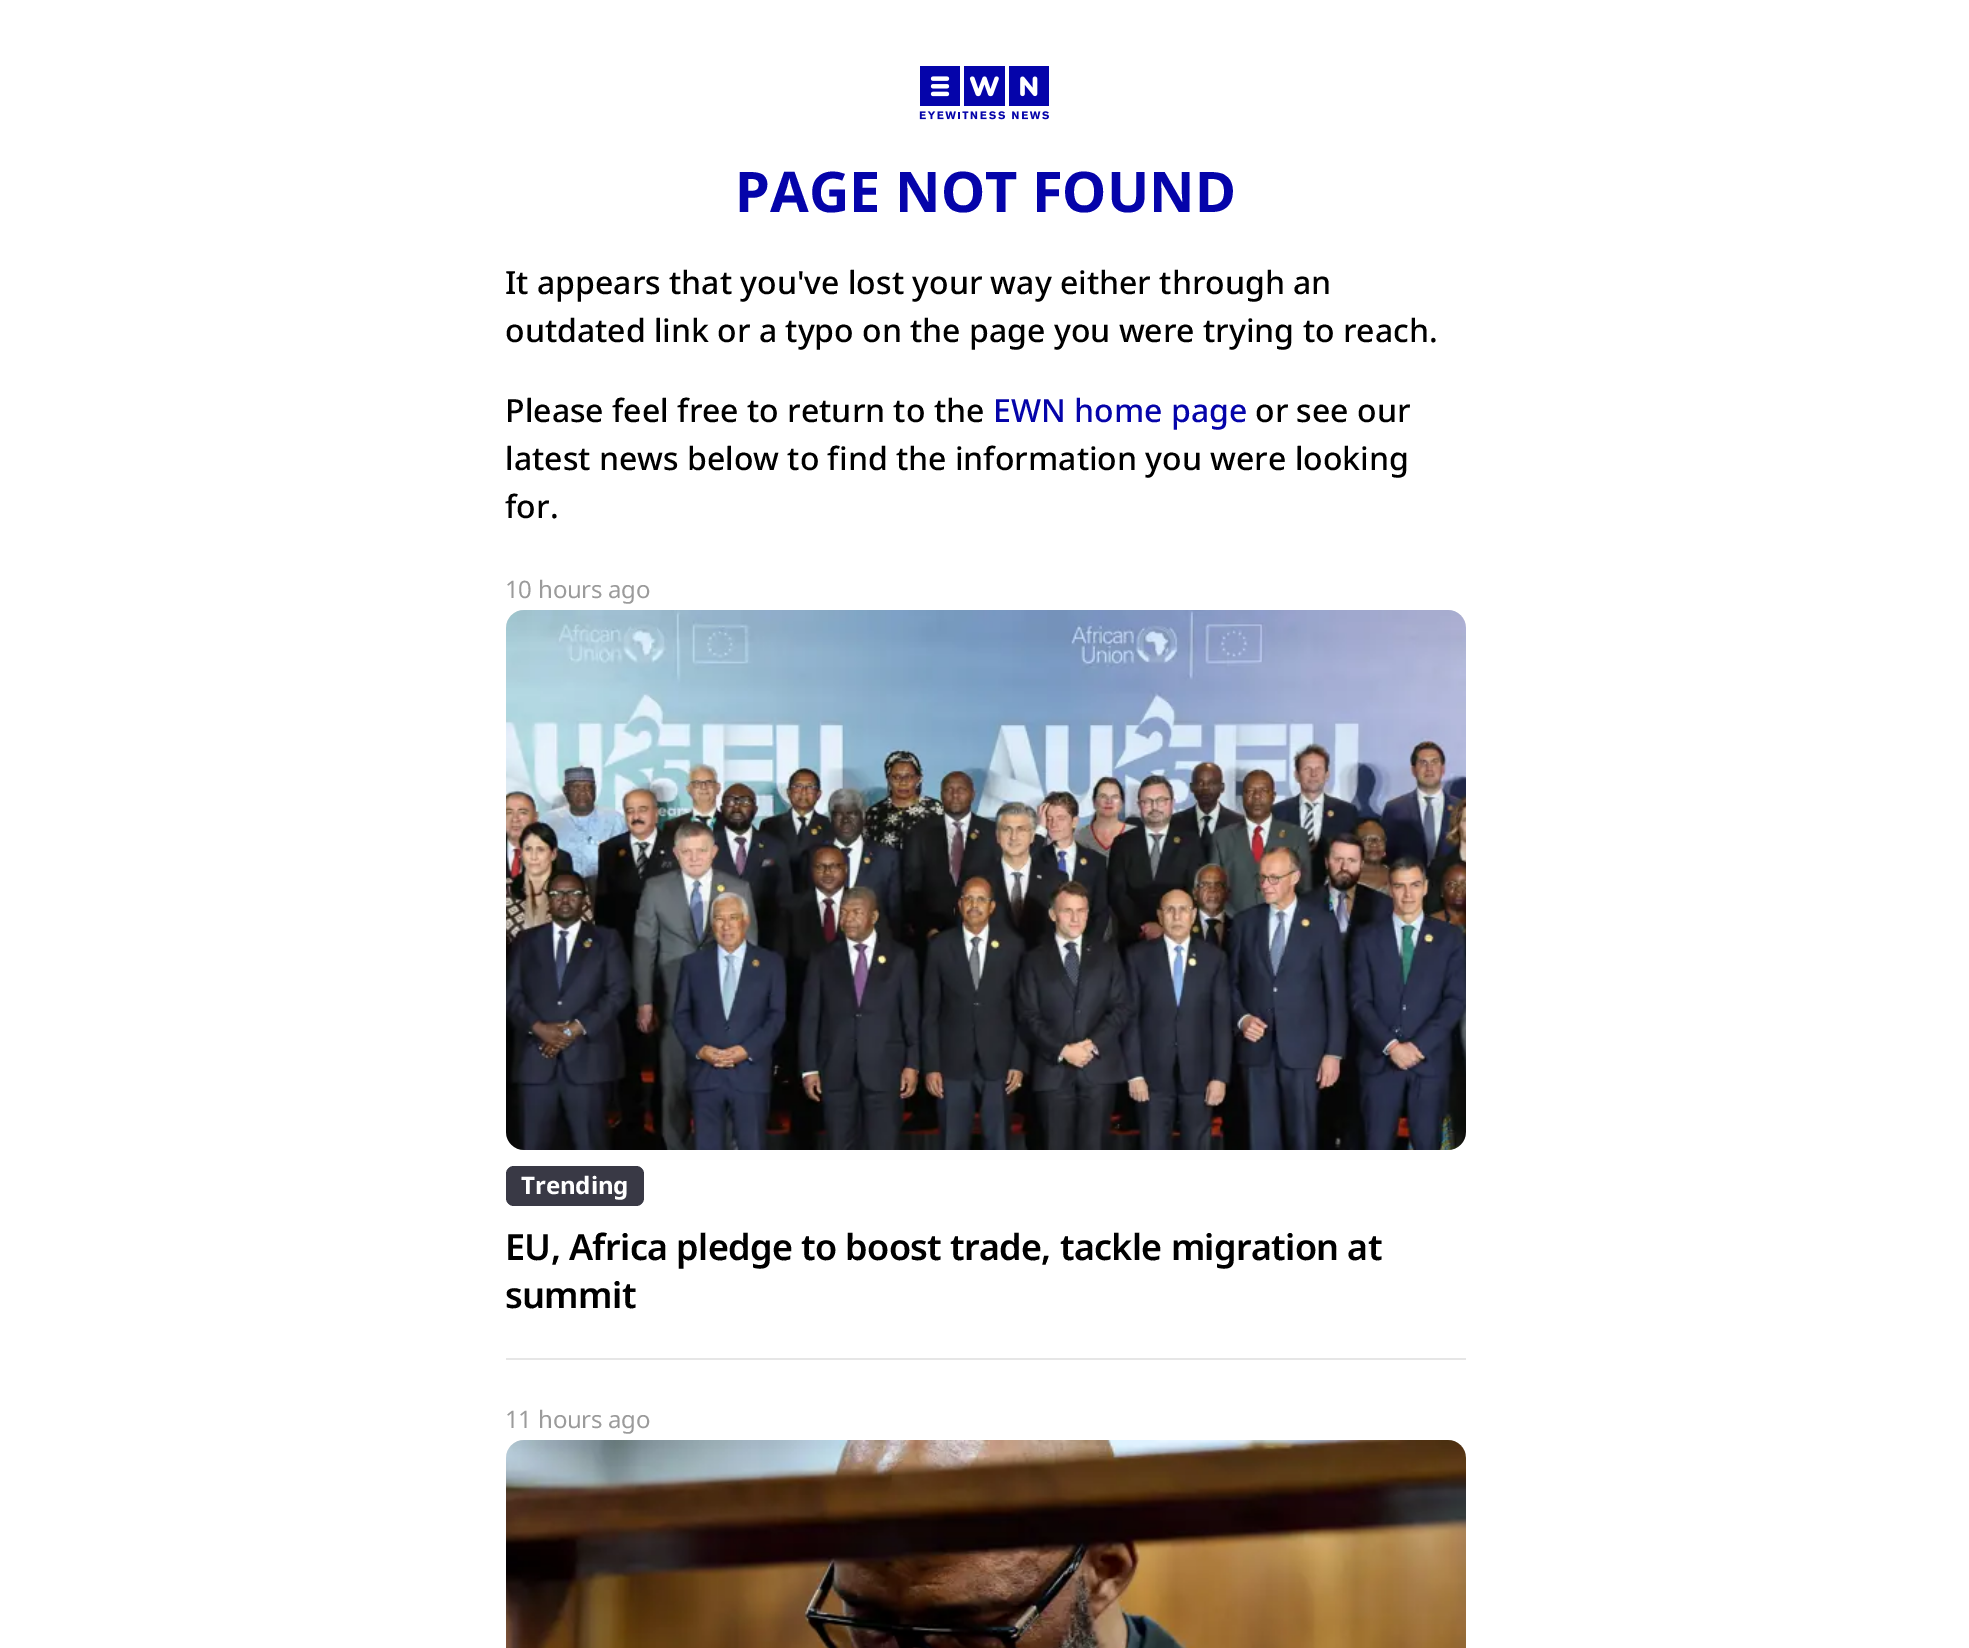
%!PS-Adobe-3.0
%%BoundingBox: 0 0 1969 1648
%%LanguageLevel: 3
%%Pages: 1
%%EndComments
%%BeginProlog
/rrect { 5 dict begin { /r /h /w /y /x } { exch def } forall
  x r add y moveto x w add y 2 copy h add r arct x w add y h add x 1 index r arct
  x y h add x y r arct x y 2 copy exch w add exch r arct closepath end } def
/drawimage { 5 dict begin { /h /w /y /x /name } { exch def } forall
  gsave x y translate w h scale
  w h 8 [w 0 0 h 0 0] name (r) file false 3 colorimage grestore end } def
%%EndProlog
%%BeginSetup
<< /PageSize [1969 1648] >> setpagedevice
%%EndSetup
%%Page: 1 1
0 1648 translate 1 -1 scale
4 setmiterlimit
1 setgray
0 0 1969 1648 rectfill
(images/1.raw) 919 66 130 54 drawimage
0.902 setgray
506 1358 960 2 rectfill
(images/2.raw) 506 610 960 540 drawimage
0.224 0.224 0.271 setrgbcolor
506 1166 138 40 8 rrect fill
(images/3.raw) 506 1440 960 208 drawimage
/NotoSans-Bold [56 0 0 -56 0 0] selectfont
0.02 0.016 0.667 setrgbcolor
735 212 moveto (PAGE NOT FOUND) show
/NotoSans-Medium [32 0 0 -32 0 0] selectfont
0 setgray
505 294 moveto (It appears that you've lost your way either through an) show
505 342 moveto (outdated link or a typo on the page you were trying to reach.) show
505 422 moveto (Please feel free to return to the) show
0.02 0.016 0.667 setrgbcolor
993 422 moveto (EWN home page) show
0 setgray
1255 422 moveto (or see our) show
505 470 moveto (latest news below to find the information you were looking) show
505 518 moveto (for.) show
/NotoSans-Regular [24 0 0 -24 0 0] selectfont
0.608 setgray
505 598 moveto -0.25 0 (10 hours ago) ashow
/NotoSans-Bold [24 0 0 -24 0 0] selectfont
1 setgray
521 1194 moveto (Trending) show
/NotoSans-SemiBold [36 0 0 -36 0 0] selectfont
0 setgray
505 1260 moveto -0.65 0 (EU, Africa pledge to boost trade, tackle migration at) ashow
505 1308 moveto -0.65 0 (summit) ashow
/NotoSans-Regular [24 0 0 -24 0 0] selectfont
0.608 setgray
505 1428 moveto -0.25 0 (11 hours ago) ashow
showpage
%%EOF
